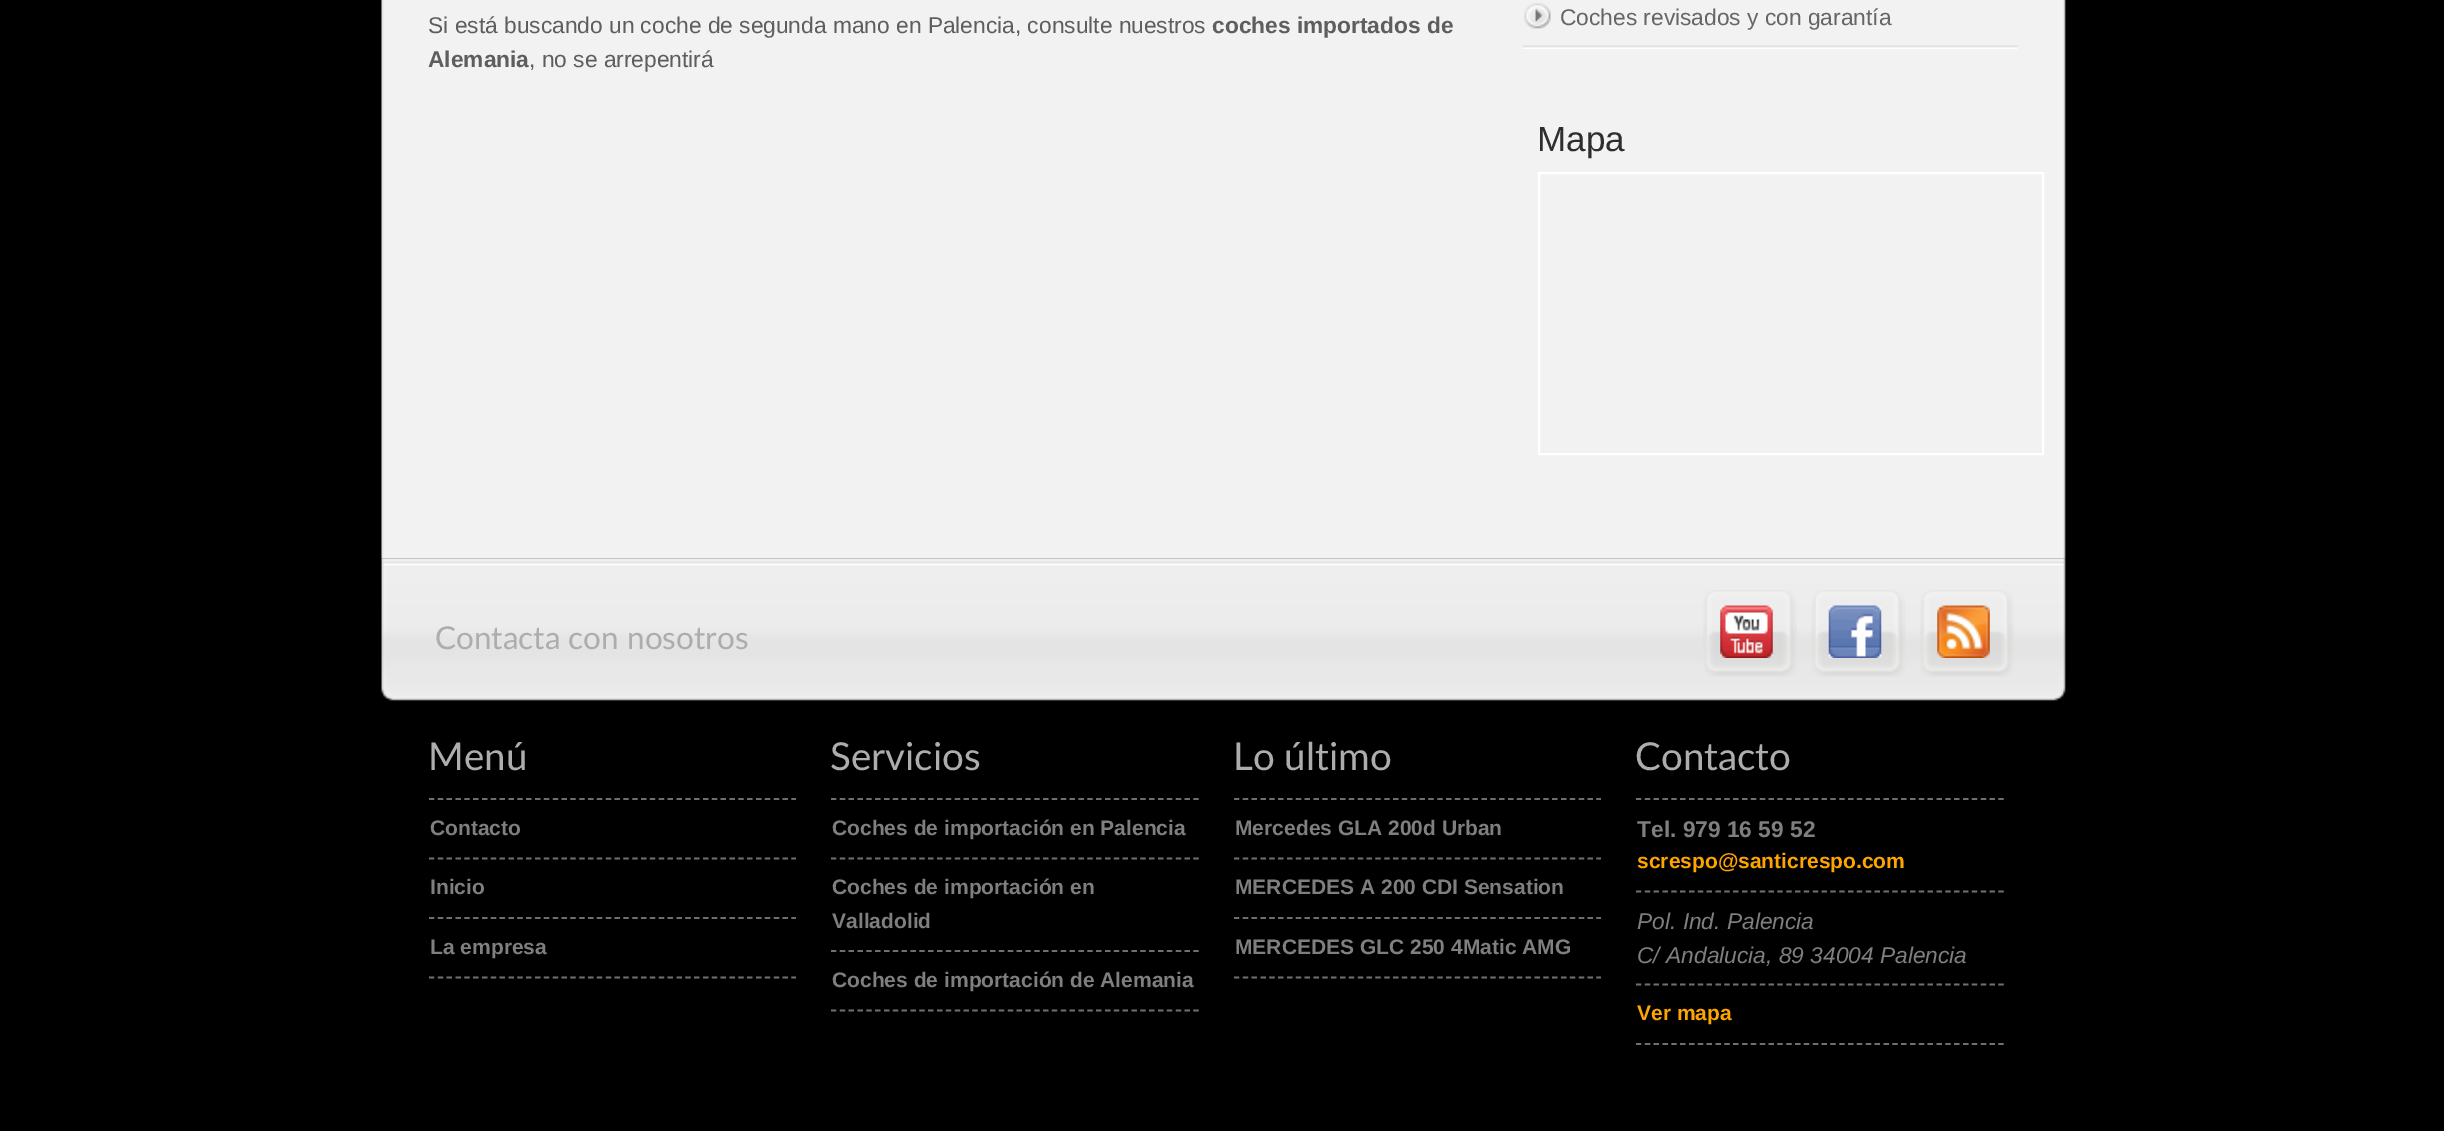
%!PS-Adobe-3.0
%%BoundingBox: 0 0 2444 1131
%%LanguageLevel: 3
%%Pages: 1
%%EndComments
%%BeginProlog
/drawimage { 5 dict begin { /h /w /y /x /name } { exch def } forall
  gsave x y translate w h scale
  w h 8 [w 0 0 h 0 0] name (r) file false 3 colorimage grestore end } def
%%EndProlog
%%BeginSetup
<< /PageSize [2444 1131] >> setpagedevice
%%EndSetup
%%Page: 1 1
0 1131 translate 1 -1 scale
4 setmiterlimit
0 setgray
0 0 2444 1131 rectfill
(images/1.raw) 381 0 1685 559 drawimage
(images/2.raw) 1523 45 495 4 drawimage
(images/3.raw) 1524 3 27 26 drawimage
1 setgray
2 setlinewidth
1539 173 504 281 rectstroke
(images/4.raw) 381 558 1685 143 drawimage
(images/5.raw) 1703 590 94 87 drawimage
(images/6.raw) 1720 605 53 53 drawimage
(images/7.raw) 1811 590 95 87 drawimage
(images/8.raw) 1828 605 54 53 drawimage
(images/5.raw) 1920 590 94 87 drawimage
(images/9.raw) 1937 605 53 53 drawimage
0.435 setgray
1.8 setlinewidth
[5.25 3.59] 0 setdash
newpath 429 977.5 moveto 796 977.5 lineto stroke
newpath 429 799 moveto 796 799 lineto stroke
newpath 429 858.5 moveto 796 858.5 lineto stroke
newpath 429 918 moveto 796 918 lineto stroke
newpath 831 1010.5 moveto 1199 1010.5 lineto stroke
newpath 831 799 moveto 1199 799 lineto stroke
newpath 831 858.5 moveto 1199 858.5 lineto stroke
newpath 831 951 moveto 1199 951 lineto stroke
newpath 1234 977.5 moveto 1601 977.5 lineto stroke
newpath 1234 799 moveto 1601 799 lineto stroke
newpath 1234 858.5 moveto 1601 858.5 lineto stroke
newpath 1234 918 moveto 1601 918 lineto stroke
newpath 1636 1044 moveto 2004 1044 lineto stroke
newpath 1636 799 moveto 2004 799 lineto stroke
newpath 1636 891.5 moveto 2004 891.5 lineto stroke
newpath 1636 984.5 moveto 2004 984.5 lineto stroke
/LiberationSans-Regular [22.75 0 0 -22.75 0 0] selectfont
0.369 setgray
428 33 moveto (Si está buscando un coche de segunda mano en Palencia, consulte nuestros) show
/LiberationSans-Bold [22.75 0 0 -22.75 0 0] selectfont
1212 33 moveto (coches importados de) show
428 67 moveto (Alemania) show
/LiberationSans-Regular [22.75 0 0 -22.75 0 0] selectfont
529 67 moveto (, no se arrepentirá) show
0.4 setgray
1560 25 moveto (Coches revisados y con garantía) show
/LiberationSans-Regular [35 0 0 -35 0 0] selectfont
0.18 setgray
1537 151 moveto (Mapa) show
/Lato-Regular [31.5 0 0 -31.5 0 0] selectfont
0.678 setgray
435 649 moveto (Contacta con nosotros) show
/Lato-Regular [38.5 0 0 -38.5 0 0] selectfont
428 770 moveto (Menú) show
/LiberationSans-Bold [21 0 0 -21 0 0] selectfont
0.498 setgray
430 835 moveto (Contacto) show
430 894 moveto (Inicio) show
430 954 moveto (La empresa) show
/Lato-Regular [38.5 0 0 -38.5 0 0] selectfont
0.678 setgray
830 770 moveto (Servicios) show
/LiberationSans-Bold [21 0 0 -21 0 0] selectfont
0.498 setgray
832 835 moveto (Coches de importación en Palencia) show
832 894 moveto (Coches de importación en) show
832 928 moveto (Valladolid) show
832 987 moveto (Coches de importación de Alemania) show
/Lato-Regular [38.5 0 0 -38.5 0 0] selectfont
0.678 setgray
1233 770 moveto (Lo último) show
/LiberationSans-Bold [21 0 0 -21 0 0] selectfont
0.498 setgray
1235 835 moveto (Mercedes GLA 200d Urban) show
1235 894 moveto (MERCEDES A 200 CDI Sensation) show
1235 954 moveto (MERCEDES GLC 250 4Matic AMG) show
/Lato-Regular [38.5 0 0 -38.5 0 0] selectfont
0.678 setgray
1635 770 moveto (Contacto) show
/LiberationSans-Bold [22.75 0 0 -22.75 0 0] selectfont
0.498 setgray
1637 837 moveto (Tel. 979 16 59 52) show
/LiberationSans-Bold [21 0 0 -21 0 0] selectfont
1 0.647 0 setrgbcolor
1637 868 moveto (screspo@santicrespo.com) show
/LiberationSans-Italic [22.75 0 0 -22.75 0 0] selectfont
0.498 setgray
1637 929 moveto (Pol. Ind. Palencia) show
1637 963 moveto (C/ Andalucia, 89 34004 Palencia) show
/LiberationSans-Bold [21 0 0 -21 0 0] selectfont
1 0.647 0 setrgbcolor
1637 1020 moveto (Ver mapa) show
showpage
%%EOF
